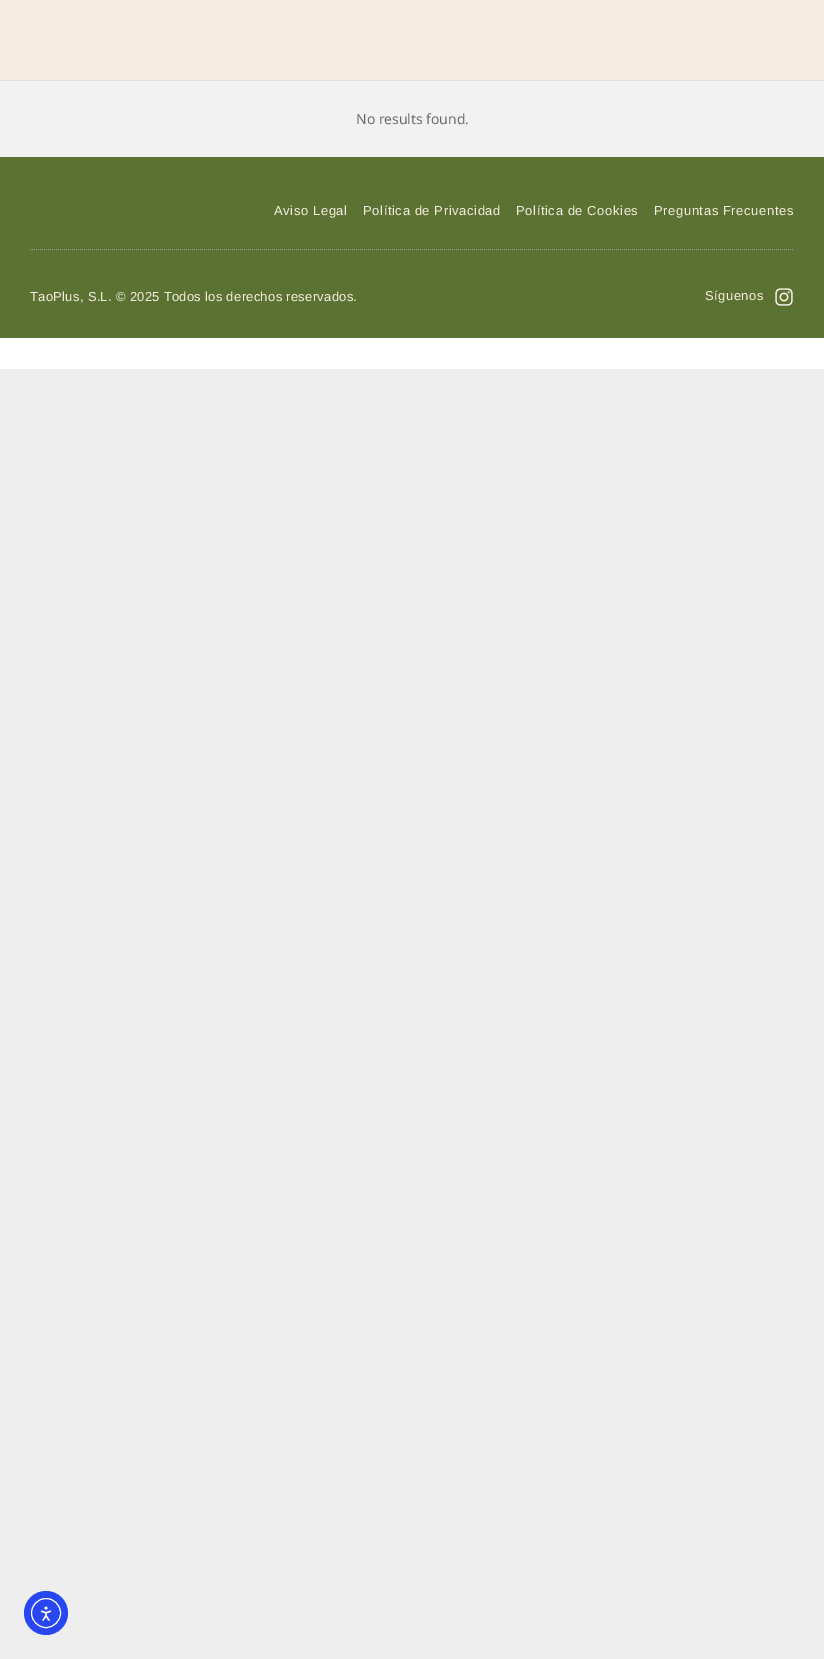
%!PS-Adobe-3.0
%%BoundingBox: 0 0 824 1659
%%LanguageLevel: 3
%%Pages: 1
%%EndComments
%%BeginProlog
/drawimage { 5 dict begin { /h /w /y /x /name } { exch def } forall
  gsave x y translate w h scale
  w h 8 [w 0 0 h 0 0] name (r) file false 3 colorimage grestore end } def
%%EndProlog
%%BeginSetup
<< /PageSize [824 1659] >> setpagedevice
%%EndSetup
%%Page: 1 1
0 1659 translate 1 -1 scale
4 setmiterlimit
0.933 setgray
0 0 824 1659 rectfill
0.875 setgray
0 80 824 1 rectfill
0.961 0.929 0.878 setrgbcolor
0 0 824 80 rectfill
0.949 setgray
0 81 824 76 rectfill
0.357 0.447 0.196 setrgbcolor
0 157 824 181 rectfill
0.608 setgray
[1 1] 0 setdash
newpath 30 249.5 moveto 794 249.5 lineto stroke
(images/1.raw) 775 288 18 18 drawimage
1 setgray
0 338 824 31 rectfill
0.157 0.278 0.953 setrgbcolor
newpath 46 1613 22 0 360 arc closepath fill
1 setgray
[] 0 setdash
newpath 46 1613 14.5 0 360 arc closepath stroke
(images/2.raw) 40 1606 12 15 drawimage
/OpenSans-Regular [14 0 0 -14 0 0] selectfont
0.4 setgray
356 124 moveto (No results found.) show
/LiberationSans-Regular [13 0 0 -13 0 0] selectfont
0.961 0.929 0.878 setrgbcolor
274 215 moveto 0.6 0 (Aviso Legal) ashow
363 215 moveto 0.6 0 (Política de Privacidad) ashow
516 215 moveto 0.6 0 (Política de Cookies) ashow
654 215 moveto 0.6 0 (Preguntas Frecuentes) ashow
30 301 moveto 0.3 0 (TaoPlus, S.L. © 2025 Todos los derechos reservados.) ashow
705 300 moveto 0.5 0 (Síguenos) ashow
showpage
%%EOF
